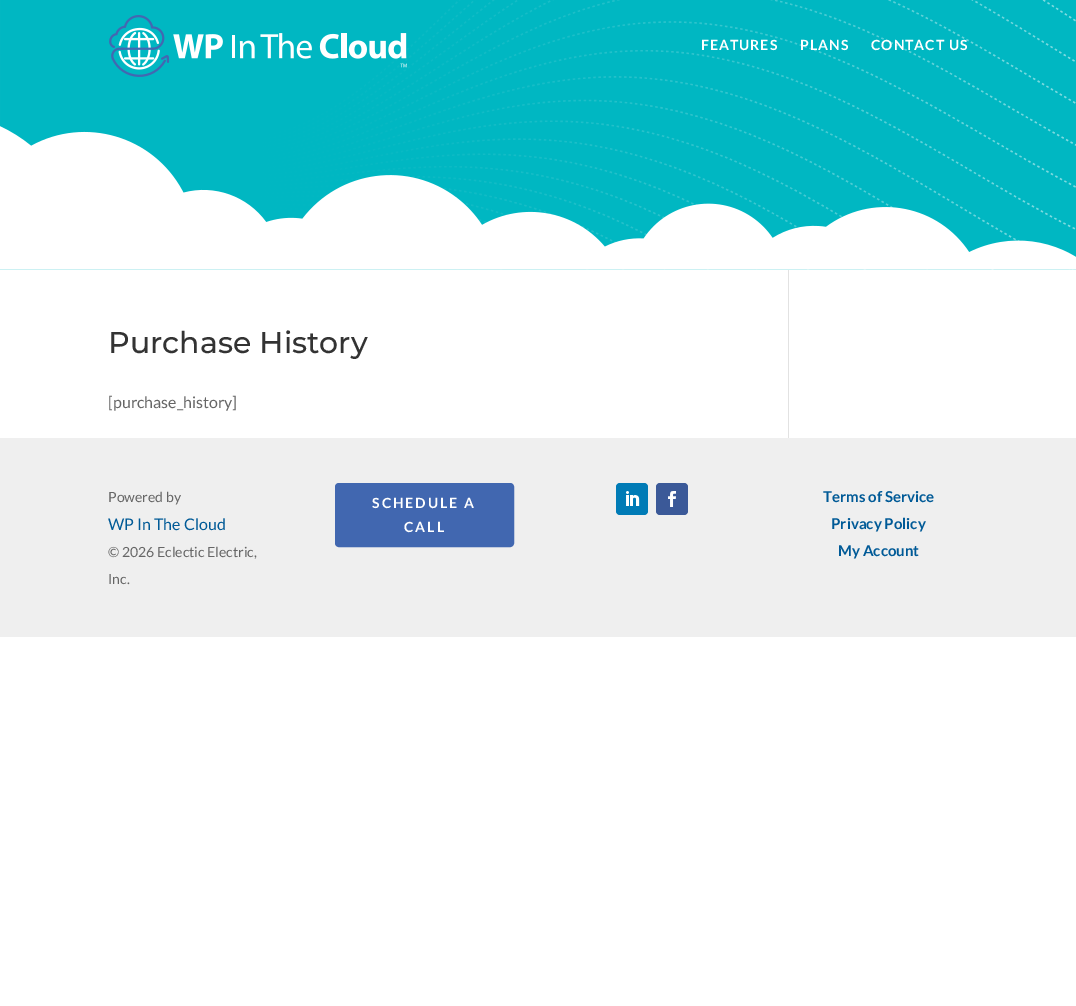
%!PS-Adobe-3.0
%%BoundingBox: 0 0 1076 1006
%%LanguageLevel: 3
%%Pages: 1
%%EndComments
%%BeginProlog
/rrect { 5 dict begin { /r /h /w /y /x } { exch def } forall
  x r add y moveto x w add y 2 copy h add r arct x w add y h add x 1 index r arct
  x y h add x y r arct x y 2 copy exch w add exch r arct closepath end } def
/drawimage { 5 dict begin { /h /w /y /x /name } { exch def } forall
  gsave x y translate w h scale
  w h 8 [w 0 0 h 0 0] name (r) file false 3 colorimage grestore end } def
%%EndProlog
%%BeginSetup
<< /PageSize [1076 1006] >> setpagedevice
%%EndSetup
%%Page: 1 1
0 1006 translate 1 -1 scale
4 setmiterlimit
1 setgray
0 0 1076 1006 rectfill
(images/3.raw) 0 0 1076 77 drawimage
(images/1.raw) 0 0 1076 270 drawimage
(images/2.raw) 0 126 1076 144 drawimage
(images/4.raw) 109 15 298 62 drawimage
0.886 setgray
788 270 1 168 rectfill
0.937 setgray
0 438 1076 199 rectfill
0.255 0.404 0.69 setrgbcolor
337 485 175 60 2 rrect gsave fill grestore
4 setlinewidth
stroke
0 0.482 0.714 setrgbcolor
616 483 32 32 4 rrect fill
(images/5.raw) 626 491 14 15 drawimage
0.231 0.349 0.596 setrgbcolor
656 483 32 32 4 rrect fill
(images/6.raw) 668 491 8 16 drawimage
/Lato-Bold [14 0 0 -14 0 0] selectfont
1 setgray
701 50 moveto 1 0 (FEATURES) ashow
800 50 moveto 1 0 (PLANS) ashow
871 50 moveto 1 0 (CONTACT US) ashow
/Montserrat-Thin [30 0 0 -30 0 0] selectfont
0.2 setgray
108 353 moveto (Purchase History) show
/Lato-Regular [16 0 0 -16 0 0] selectfont
0.4 setgray
108 408 moveto ([purchase_history]) show
/Lato-Regular [14 0 0 -14 0 0] selectfont
108 502 moveto (Powered by) show
/Lato-Regular [16 0 0 -16 0 0] selectfont
0 0.353 0.592 setrgbcolor
108 530 moveto (WP In The Cloud) show
/Lato-Regular [14 0 0 -14 0 0] selectfont
0.4 setgray
108 557 moveto (© 2026 Eclectic Electric,) show
108 584 moveto (Inc.) show
/Lato-Bold [14 0 0 -14 0 0] selectfont
1 setgray
372 508 moveto 2 0 (SCHEDULE A) ashow
404 532 moveto 2 0 (CALL) ashow
/Lato-Bold [15 0 0 -15 0 0] selectfont
0 0.353 0.592 setrgbcolor
823 502 moveto (Terms of Service) show
831 529 moveto (Privacy Policy) show
838 556 moveto (My Account) show
showpage
%%EOF
